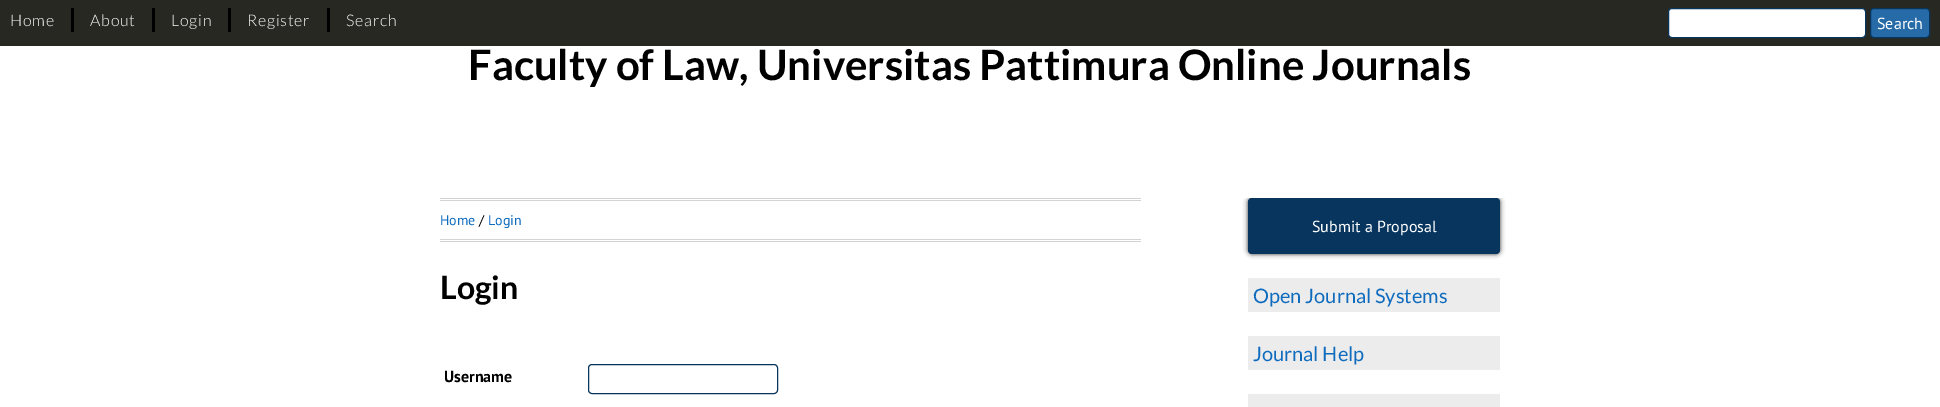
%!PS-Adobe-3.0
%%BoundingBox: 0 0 1940 407
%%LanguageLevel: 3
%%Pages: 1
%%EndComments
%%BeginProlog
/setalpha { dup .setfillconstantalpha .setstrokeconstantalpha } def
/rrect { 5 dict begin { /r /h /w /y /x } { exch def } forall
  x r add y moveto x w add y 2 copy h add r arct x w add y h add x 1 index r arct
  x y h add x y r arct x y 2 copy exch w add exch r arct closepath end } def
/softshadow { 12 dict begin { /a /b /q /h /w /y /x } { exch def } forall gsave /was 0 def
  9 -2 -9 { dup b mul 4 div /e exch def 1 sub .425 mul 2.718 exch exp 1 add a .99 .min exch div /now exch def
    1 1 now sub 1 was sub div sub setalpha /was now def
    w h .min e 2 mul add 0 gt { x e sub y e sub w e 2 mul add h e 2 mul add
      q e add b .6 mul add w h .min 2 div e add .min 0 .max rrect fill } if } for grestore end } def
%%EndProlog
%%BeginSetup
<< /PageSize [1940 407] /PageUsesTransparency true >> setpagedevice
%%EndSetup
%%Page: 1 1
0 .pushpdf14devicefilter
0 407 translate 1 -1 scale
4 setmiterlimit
1 setgray
0 0 1940 407 rectfill
0.153 0.157 0.133 setrgbcolor
0 0 1940 46 rectfill
0 setgray
71 8 3 24 rectfill
152 8 3 24 rectfill
228 8 3 24 rectfill
327 8 3 24 rectfill
1 setgray
1668.5 8.5 197 29 3.5 rrect gsave fill grestore
0.027 0.208 0.369 setrgbcolor
stroke
0.149 0.42 0.659 setrgbcolor
1870.5 8.5 59 29 3.5 rrect gsave fill grestore
0.027 0.208 0.369 setrgbcolor
stroke
0.82 0.827 0.835 setrgbcolor
440 198 701 1 rectfill
440 200 701 1 rectfill
440 239 701 1 rectfill
440 241 701 1 rectfill
0.027 0.208 0.369 setrgbcolor
588.5 364.5 189 29 3.5 rrect stroke
gsave
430 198 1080 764 rectclip
0.2 setgray
1248 198 252 56 4 2.5 1 softshadow
grestore
1248 198 252 56 4 rrect fill
0.925 0.925 0.929 setrgbcolor
1248 278 252 34 rectfill
1248 336 252 34 rectfill
1248 394 252 13 rectfill
/Lato-Light [16 0 0 -16 0 0] selectfont
1 setgray
10 26 moveto 0.75 0 (Home) ashow
90 26 moveto 0.75 0 (About) ashow
171 26 moveto 0.75 0 (Login) ashow
247 26 moveto 0.75 0 (Register) ashow
346 26 moveto 0.75 0 (Search) ashow
/PTSans-Regular [16 0 0 -16 0 0] selectfont
1877 29 moveto (Search) show
/Lato-Bold [42 0 0 -42 0 0] selectfont
0 setgray
468 80 moveto (Faculty of Law, Universitas Pattimura Online Journals) show
/PTSans-Regular [14 0 0 -14 0 0] selectfont
0.055 0.42 0.741 setrgbcolor
440 225 moveto (Home) show
0 setgray
479 225 moveto (/) show
0.055 0.42 0.741 setrgbcolor
488 225 moveto (Login) show
/Lato-Bold [32 0 0 -32 0 0] selectfont
0 setgray
440 299 moveto (Login) show
/PTSans-Bold [16 0 0 -16 0 0] selectfont
444 382 moveto (Username) show
/PTSans-Regular [16 0 0 -16 0 0] selectfont
1 setgray
1312 232 moveto (Submit a Proposal) show
/Lato-Regular [20 0 0 -20 0 0] selectfont
0.055 0.42 0.741 setrgbcolor
1253 303 moveto (Open Journal Systems) show
1253 361 moveto (Journal Help) show
.poppdf14devicefilter showpage
%%EOF
